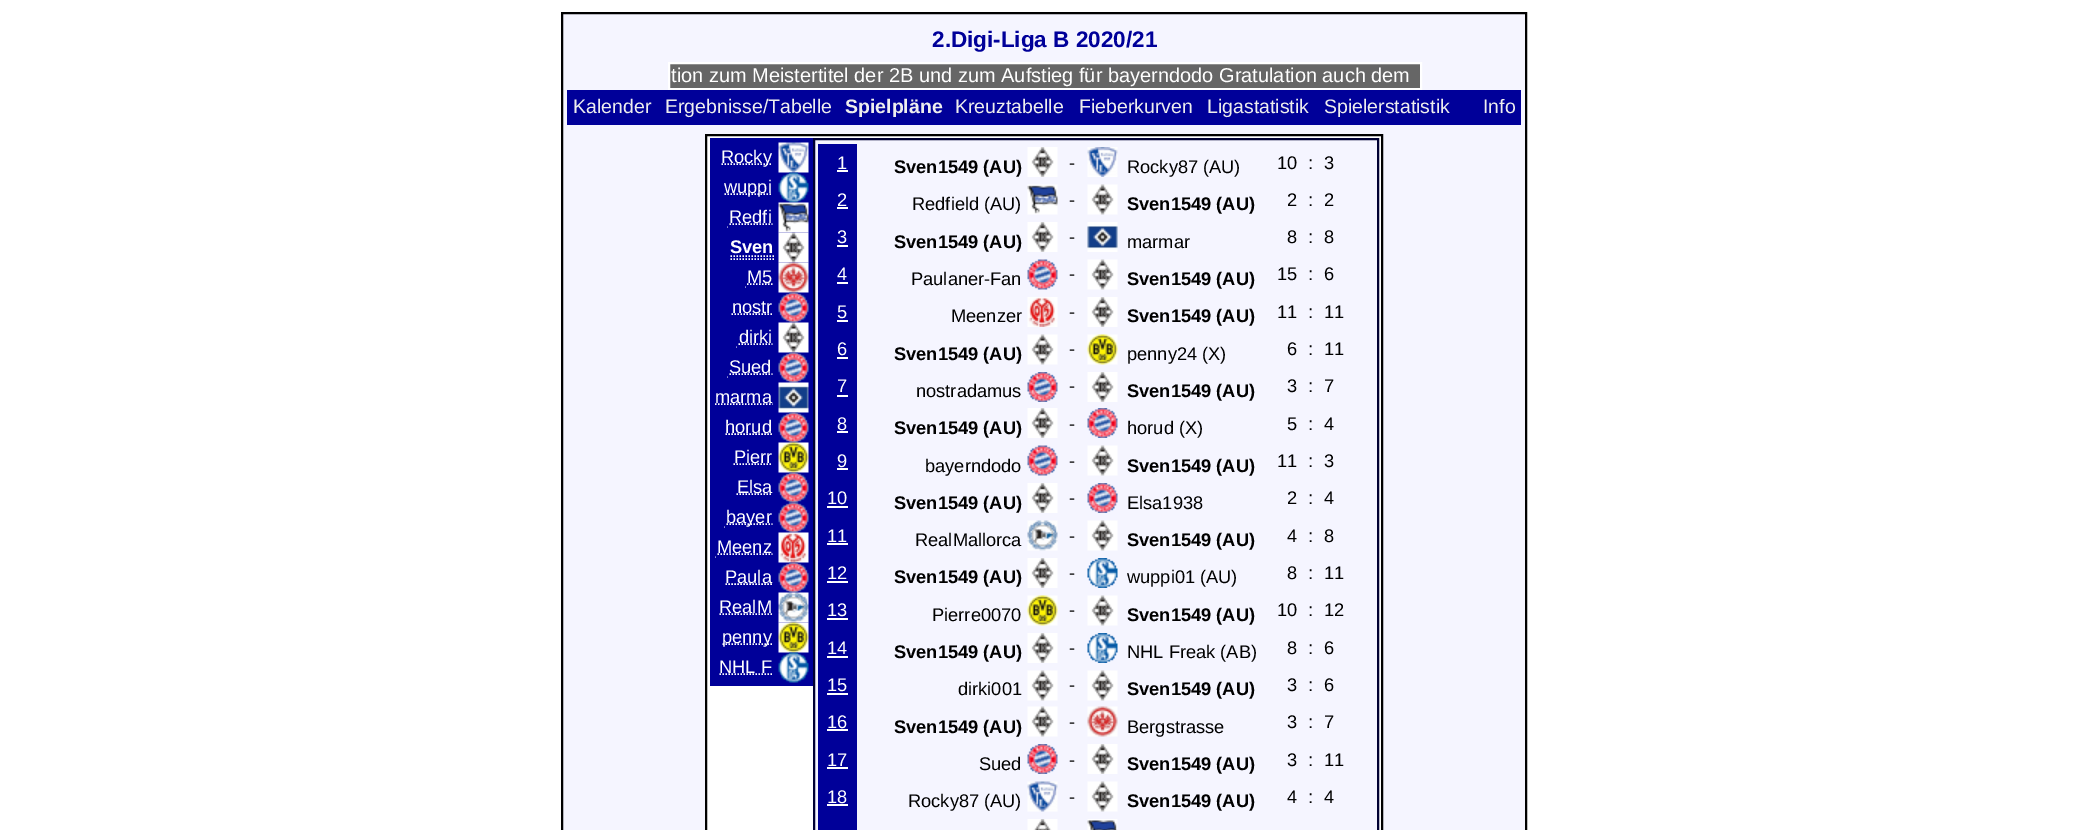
%!PS-Adobe-3.0
%%BoundingBox: 0 0 2087 830
%%LanguageLevel: 3
%%Pages: 1
%%EndComments
%%BeginProlog
/drawimage { 5 dict begin { /h /w /y /x /name } { exch def } forall
  gsave x y translate w h scale
  w h 8 [w 0 0 h 0 0] name (r) file false 3 colorimage grestore end } def
%%EndProlog
%%BeginSetup
<< /PageSize [2087 830] >> setpagedevice
%%EndSetup
%%Page: 1 1
0 830 translate 1 -1 scale
4 setmiterlimit
1 setgray
0 0 2087 830 rectfill
0.961 0.961 1 setrgbcolor
newpath 562 13 moveto 1526 13 lineto 1526 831 lineto 562 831 lineto closepath gsave fill grestore
0 setgray
2 setlinewidth
stroke
0.4 setgray
newpath 669 63 moveto 1421 63 lineto 1421 89 lineto 669 89 lineto closepath gsave fill grestore
1 setgray
stroke
0 0 0.6 setrgbcolor
567 90 954 35 rectfill
1 setgray
newpath 706 135 moveto 1382 135 lineto 1382 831 lineto 706 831 lineto closepath gsave fill grestore
0 setgray
stroke
0 0 0.6 setrgbcolor
710 138 103 548 rectfill
1 setgray
1.5 setlinewidth
[1.5 1.5] 0 setdash
newpath 721.5 164 moveto 772.5 164 lineto stroke
(images/1.raw) 778 142 31 31 drawimage
newpath 724.5 194 moveto 772.5 194 lineto stroke
(images/2.raw) 778 172 31 31 drawimage
newpath 727.5 227 moveto 774 227 lineto stroke
0 0 0.6 setrgbcolor
728 226 46 2 rectfill
1 setgray
newpath 729.5 224 moveto 772.5 224 lineto stroke
(images/3.raw) 778 202 31 31 drawimage
newpath 730.5 259 moveto 774 259 lineto 730.5 256 moveto 774 256 lineto stroke
(images/4.raw) 778 232 31 31 drawimage
newpath 745.5 287 moveto 774 287 lineto stroke
0 0 0.6 setrgbcolor
746 286 28 2 rectfill
1 setgray
newpath 747 284 moveto 772.5 284 lineto stroke
(images/5.raw) 778 262 31 31 drawimage
newpath 731.5 314 moveto 772.5 314 lineto stroke
(images/6.raw) 778 292 31 31 drawimage
newpath 736.5 347 moveto 774 347 lineto stroke
0 0 0.6 setrgbcolor
737 346 37 2 rectfill
1 setgray
newpath 738.5 344 moveto 772.5 344 lineto stroke
(images/7.raw) 778 322 31 31 drawimage
newpath 727.5 377 moveto 774 377 lineto stroke
0 0 0.6 setrgbcolor
728 376 46 2 rectfill
1 setgray
newpath 729.5 374 moveto 772.5 374 lineto stroke
(images/8.raw) 778 352 31 31 drawimage
newpath 715 404 moveto 772.5 404 lineto stroke
(images/9.raw) 778 382 31 31 drawimage
newpath 725.5 434 moveto 772.5 434 lineto stroke
(images/10.raw) 778 412 31 31 drawimage
newpath 733.5 464 moveto 772.5 464 lineto stroke
(images/11.raw) 778 442 31 31 drawimage
newpath 736.5 494 moveto 772.5 494 lineto stroke
(images/12.raw) 778 472 31 31 drawimage
newpath 724.5 527 moveto 774 527 lineto stroke
0 0 0.6 setrgbcolor
725 526 49 2 rectfill
1 setgray
newpath 726.5 524 moveto 772.5 524 lineto stroke
(images/13.raw) 778 502 31 31 drawimage
newpath 715.5 557 moveto 774 557 lineto stroke
0 0 0.6 setrgbcolor
716 556 58 2 rectfill
1 setgray
newpath 717.5 554 moveto 772.5 554 lineto stroke
(images/14.raw) 778 532 31 31 drawimage
newpath 725.5 584 moveto 772.5 584 lineto stroke
(images/15.raw) 778 562 31 31 drawimage
newpath 719.5 614 moveto 772.5 614 lineto stroke
(images/16.raw) 778 592 31 31 drawimage
newpath 722.5 644 moveto 772.5 644 lineto stroke
(images/17.raw) 778 622 31 31 drawimage
newpath 719.5 674 moveto 772.5 674 lineto stroke
(images/18.raw) 778 652 31 31 drawimage
0.961 0.961 1 setrgbcolor
newpath 814 139 moveto 1378 139 lineto 1378 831 lineto 814 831 lineto closepath gsave fill grestore
0 0 0.2 setrgbcolor
2 setlinewidth
[] 0 setdash
stroke
0 0 0.6 setrgbcolor
818 144 39 686 rectfill
1 setgray
837 170 11 2 rectfill
(images/19.raw) 1027 147 31 30 drawimage
(images/20.raw) 1087 147 31 30 drawimage
837 207 11 2 rectfill
(images/21.raw) 1027 184 31 31 drawimage
(images/22.raw) 1087 184 31 31 drawimage
837 245 11 2 rectfill
(images/19.raw) 1027 222 31 30 drawimage
(images/23.raw) 1087 222 31 30 drawimage
837 282 11 2 rectfill
(images/24.raw) 1027 259 31 31 drawimage
(images/22.raw) 1087 259 31 31 drawimage
837 320 11 2 rectfill
(images/25.raw) 1027 297 31 30 drawimage
(images/19.raw) 1087 297 31 30 drawimage
837 357 11 2 rectfill
(images/22.raw) 1027 334 31 31 drawimage
(images/26.raw) 1087 334 31 31 drawimage
837 395 11 2 rectfill
(images/27.raw) 1027 372 31 30 drawimage
(images/19.raw) 1087 372 31 30 drawimage
837 431 11 2 rectfill
(images/19.raw) 1027 408 31 30 drawimage
(images/27.raw) 1087 408 31 30 drawimage
837 468 11 2 rectfill
(images/24.raw) 1027 445 31 31 drawimage
(images/22.raw) 1087 445 31 31 drawimage
827 506 21 2 rectfill
(images/19.raw) 1027 483 31 30 drawimage
(images/27.raw) 1087 483 31 30 drawimage
827 543 21 2 rectfill
(images/28.raw) 1027 520 31 31 drawimage
(images/22.raw) 1087 520 31 31 drawimage
827 581 21 2 rectfill
(images/19.raw) 1027 558 31 30 drawimage
(images/29.raw) 1087 558 31 30 drawimage
827 618 21 2 rectfill
(images/26.raw) 1027 595 31 31 drawimage
(images/22.raw) 1087 595 31 31 drawimage
827 656 21 2 rectfill
(images/19.raw) 1027 633 31 30 drawimage
(images/29.raw) 1087 633 31 30 drawimage
827 693 21 2 rectfill
(images/22.raw) 1027 670 31 31 drawimage
(images/22.raw) 1087 670 31 31 drawimage
827 729 21 2 rectfill
(images/22.raw) 1027 706 31 31 drawimage
(images/30.raw) 1087 706 31 31 drawimage
827 767 21 2 rectfill
(images/27.raw) 1027 744 31 30 drawimage
(images/19.raw) 1087 744 31 30 drawimage
827 804 21 2 rectfill
(images/31.raw) 1027 781 31 31 drawimage
(images/22.raw) 1087 781 31 31 drawimage
(images/32.raw) 1027 819 31 11 drawimage
(images/33.raw) 1087 819 31 11 drawimage
/LiberationSans-Bold [22.5 0 0 -22.5 0 0] selectfont
0 0 0.6 setrgbcolor
932 47 moveto (2.Digi-Liga B 2020/21) show
/LiberationSans-Regular [20 0 0 -20 0 0] selectfont
1 setgray
671 82 moveto (tion zum Meistertitel der 2B und zum Aufstieg für bayerndodo Gratulation auch dem) show
/LiberationSans-Regular [19.5 0 0 -19.5 0 0] selectfont
0.933 setgray
573 113 moveto (Kalender) show
665 113 moveto (Ergebnisse/Tabelle) show
/LiberationSans-Bold [19.5 0 0 -19.5 0 0] selectfont
845 113 moveto (Spielpläne) show
/LiberationSans-Regular [19.5 0 0 -19.5 0 0] selectfont
955 113 moveto (Kreuztabelle) show
1079 113 moveto (Fieberkurven) show
1207 113 moveto (Ligastatistik) show
1324 113 moveto (Spielerstatistik) show
1483 113 moveto (Info) show
/LiberationSans-Regular [18.25 0 0 -18.25 0 0] selectfont
1 setgray
721 163 moveto (Rocky) show
724 193 moveto (wuppi) show
729 223 moveto (Redfi) show
/LiberationSans-Bold [18.25 0 0 -18.25 0 0] selectfont
730 253 moveto (Sven) show
/LiberationSans-Regular [18.25 0 0 -18.25 0 0] selectfont
747 283 moveto (M5) show
732 313 moveto (nostr) show
739 343 moveto (dirki) show
729 373 moveto (Sued) show
715 403 moveto (marma) show
725 433 moveto (horud) show
734 463 moveto (Pierr) show
737 493 moveto (Elsa) show
726 523 moveto (bayer) show
717 553 moveto (Meenz) show
725 583 moveto (Paula) show
719 613 moveto (RealM) show
722 643 moveto (penny) show
719 673 moveto (NHL F) show
837 169 moveto (1) show
/LiberationSans-Bold [18.25 0 0 -18.25 0 0] selectfont
0 setgray
894 173 moveto (Sven1549 \(AU\)) show
/LiberationSans-Regular [18.25 0 0 -18.25 0 0] selectfont
1069 169 moveto (-) show
1127 173 moveto (Rocky87 \(AU\)) show
1277 169 moveto (10) show
1308 169 moveto (:) show
1324 169 moveto (3) show
1 setgray
837 206 moveto (2) show
0 setgray
912 210 moveto (Redfield \(AU\)) show
1069 206 moveto (-) show
/LiberationSans-Bold [18.25 0 0 -18.25 0 0] selectfont
1127 210 moveto (Sven1549 \(AU\)) show
/LiberationSans-Regular [18.25 0 0 -18.25 0 0] selectfont
1287 206 moveto (2) show
1308 206 moveto (:) show
1324 206 moveto (2) show
1 setgray
837 243 moveto (3) show
/LiberationSans-Bold [18.25 0 0 -18.25 0 0] selectfont
0 setgray
894 248 moveto (Sven1549 \(AU\)) show
/LiberationSans-Regular [18.25 0 0 -18.25 0 0] selectfont
1069 243 moveto (-) show
1127 248 moveto (marmar) show
1287 243 moveto (8) show
1308 243 moveto (:) show
1324 243 moveto (8) show
1 setgray
837 280 moveto (4) show
0 setgray
911 285 moveto (Paulaner-Fan) show
1069 280 moveto (-) show
/LiberationSans-Bold [18.25 0 0 -18.25 0 0] selectfont
1127 285 moveto (Sven1549 \(AU\)) show
/LiberationSans-Regular [18.25 0 0 -18.25 0 0] selectfont
1277 280 moveto (15) show
1308 280 moveto (:) show
1324 280 moveto (6) show
1 setgray
837 318 moveto (5) show
0 setgray
951 322 moveto (Meenzer) show
1069 318 moveto (-) show
/LiberationSans-Bold [18.25 0 0 -18.25 0 0] selectfont
1127 322 moveto (Sven1549 \(AU\)) show
/LiberationSans-Regular [18.25 0 0 -18.25 0 0] selectfont
1277 318 moveto (11) show
1308 318 moveto (:) show
1324 318 moveto (11) show
1 setgray
837 355 moveto (6) show
/LiberationSans-Bold [18.25 0 0 -18.25 0 0] selectfont
0 setgray
894 360 moveto (Sven1549 \(AU\)) show
/LiberationSans-Regular [18.25 0 0 -18.25 0 0] selectfont
1069 355 moveto (-) show
1127 360 moveto (penny24 \(X\)) show
1287 355 moveto (6) show
1308 355 moveto (:) show
1324 355 moveto (11) show
1 setgray
837 392 moveto (7) show
0 setgray
916 397 moveto (nostradamus) show
1069 392 moveto (-) show
/LiberationSans-Bold [18.25 0 0 -18.25 0 0] selectfont
1127 397 moveto (Sven1549 \(AU\)) show
/LiberationSans-Regular [18.25 0 0 -18.25 0 0] selectfont
1287 392 moveto (3) show
1308 392 moveto (:) show
1324 392 moveto (7) show
1 setgray
837 430 moveto (8) show
/LiberationSans-Bold [18.25 0 0 -18.25 0 0] selectfont
0 setgray
894 434 moveto (Sven1549 \(AU\)) show
/LiberationSans-Regular [18.25 0 0 -18.25 0 0] selectfont
1069 430 moveto (-) show
1127 434 moveto (horud \(X\)) show
1287 430 moveto (5) show
1308 430 moveto (:) show
1324 430 moveto (4) show
1 setgray
837 467 moveto (9) show
0 setgray
925 472 moveto (bayerndodo) show
1069 467 moveto (-) show
/LiberationSans-Bold [18.25 0 0 -18.25 0 0] selectfont
1127 472 moveto (Sven1549 \(AU\)) show
/LiberationSans-Regular [18.25 0 0 -18.25 0 0] selectfont
1277 467 moveto (11) show
1308 467 moveto (:) show
1324 467 moveto (3) show
1 setgray
827 504 moveto (10) show
/LiberationSans-Bold [18.25 0 0 -18.25 0 0] selectfont
0 setgray
894 509 moveto (Sven1549 \(AU\)) show
/LiberationSans-Regular [18.25 0 0 -18.25 0 0] selectfont
1069 504 moveto (-) show
1127 509 moveto (Elsa1938) show
1287 504 moveto (2) show
1308 504 moveto (:) show
1324 504 moveto (4) show
1 setgray
827 542 moveto (11) show
0 setgray
915 546 moveto (RealMallorca) show
1069 542 moveto (-) show
/LiberationSans-Bold [18.25 0 0 -18.25 0 0] selectfont
1127 546 moveto (Sven1549 \(AU\)) show
/LiberationSans-Regular [18.25 0 0 -18.25 0 0] selectfont
1287 542 moveto (4) show
1308 542 moveto (:) show
1324 542 moveto (8) show
1 setgray
827 579 moveto (12) show
/LiberationSans-Bold [18.25 0 0 -18.25 0 0] selectfont
0 setgray
894 583 moveto (Sven1549 \(AU\)) show
/LiberationSans-Regular [18.25 0 0 -18.25 0 0] selectfont
1069 579 moveto (-) show
1127 583 moveto (wuppi01 \(AU\)) show
1287 579 moveto (8) show
1308 579 moveto (:) show
1324 579 moveto (11) show
1 setgray
827 616 moveto (13) show
0 setgray
932 621 moveto (Pierre0070) show
1069 616 moveto (-) show
/LiberationSans-Bold [18.25 0 0 -18.25 0 0] selectfont
1127 621 moveto (Sven1549 \(AU\)) show
/LiberationSans-Regular [18.25 0 0 -18.25 0 0] selectfont
1277 616 moveto (10) show
1308 616 moveto (:) show
1324 616 moveto (12) show
1 setgray
827 654 moveto (14) show
/LiberationSans-Bold [18.25 0 0 -18.25 0 0] selectfont
0 setgray
894 658 moveto (Sven1549 \(AU\)) show
/LiberationSans-Regular [18.25 0 0 -18.25 0 0] selectfont
1069 654 moveto (-) show
1127 658 moveto (NHL Freak \(AB\)) show
1287 654 moveto (8) show
1308 654 moveto (:) show
1324 654 moveto (6) show
1 setgray
827 691 moveto (15) show
0 setgray
958 695 moveto (dirki001) show
1069 691 moveto (-) show
/LiberationSans-Bold [18.25 0 0 -18.25 0 0] selectfont
1127 695 moveto (Sven1549 \(AU\)) show
/LiberationSans-Regular [18.25 0 0 -18.25 0 0] selectfont
1287 691 moveto (3) show
1308 691 moveto (:) show
1324 691 moveto (6) show
1 setgray
827 728 moveto (16) show
/LiberationSans-Bold [18.25 0 0 -18.25 0 0] selectfont
0 setgray
894 733 moveto (Sven1549 \(AU\)) show
/LiberationSans-Regular [18.25 0 0 -18.25 0 0] selectfont
1069 728 moveto (-) show
1127 733 moveto (Bergstrasse) show
1287 728 moveto (3) show
1308 728 moveto (:) show
1324 728 moveto (7) show
1 setgray
827 766 moveto (17) show
0 setgray
979 770 moveto (Sued) show
1069 766 moveto (-) show
/LiberationSans-Bold [18.25 0 0 -18.25 0 0] selectfont
1127 770 moveto (Sven1549 \(AU\)) show
/LiberationSans-Regular [18.25 0 0 -18.25 0 0] selectfont
1287 766 moveto (3) show
1308 766 moveto (:) show
1324 766 moveto (11) show
1 setgray
827 803 moveto (18) show
0 setgray
908 807 moveto (Rocky87 \(AU\)) show
1069 803 moveto (-) show
/LiberationSans-Bold [18.25 0 0 -18.25 0 0] selectfont
1127 807 moveto (Sven1549 \(AU\)) show
/LiberationSans-Regular [18.25 0 0 -18.25 0 0] selectfont
1287 803 moveto (4) show
1308 803 moveto (:) show
1324 803 moveto (4) show
showpage
%%EOF
